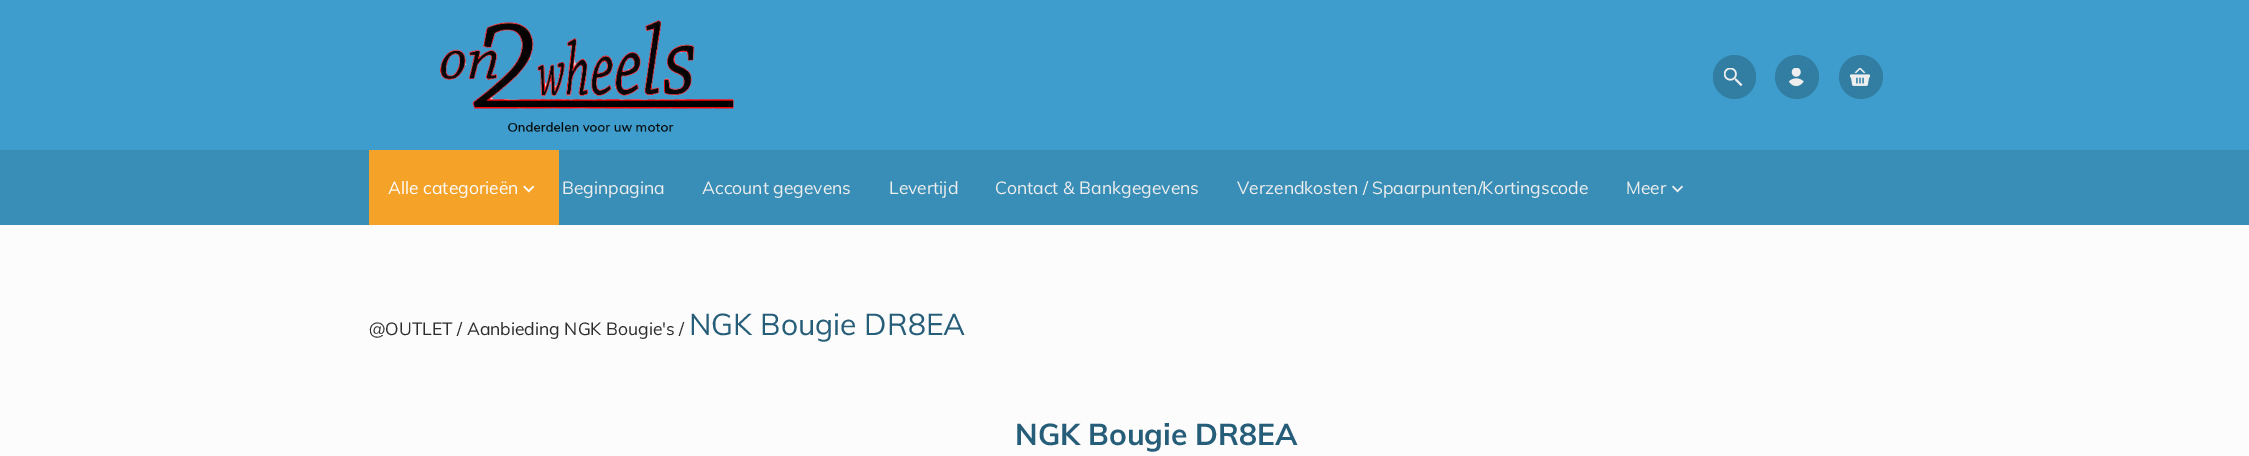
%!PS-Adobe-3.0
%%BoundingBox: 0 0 2249 456
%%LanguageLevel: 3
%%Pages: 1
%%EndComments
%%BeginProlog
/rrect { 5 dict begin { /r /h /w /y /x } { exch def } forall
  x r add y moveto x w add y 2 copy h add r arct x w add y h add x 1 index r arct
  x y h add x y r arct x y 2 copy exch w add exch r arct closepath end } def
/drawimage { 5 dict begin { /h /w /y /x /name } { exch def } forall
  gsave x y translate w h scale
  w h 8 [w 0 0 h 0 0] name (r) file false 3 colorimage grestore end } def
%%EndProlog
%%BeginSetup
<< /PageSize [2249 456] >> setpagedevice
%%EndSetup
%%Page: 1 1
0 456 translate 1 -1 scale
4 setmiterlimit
0.988 setgray
0 0 2249 456 rectfill
0.243 0.616 0.8 setrgbcolor
0 0 2249 150 rectfill
(images/1.raw) 440 20 294 112 drawimage
0.196 0.494 0.639 setrgbcolor
1713 55 43 44 21.5 rrect fill
(images/2.raw) 1724 68 19 18 drawimage
newpath 1797 77 22 0 360 arc closepath fill
(images/3.raw) 1789 68 15 18 drawimage
newpath 1861 77 22 0 360 arc closepath fill
(images/4.raw) 1850 68 20 18 drawimage
0.22 0.557 0.718 setrgbcolor
0 150 2249 75 rectfill
0.961 0.635 0.157 setrgbcolor
369 150 190 75 rectfill
(images/5.raw) 523 185 12 8 drawimage
(images/6.raw) 1672 185 11 8 drawimage
/Muli-Regular [17.5 0 0 -17.5 0 0] selectfont
0.988 setgray
388 194 moveto (Alle categorieën) show
0.933 setgray
562 194 moveto (Beginpagina) show
702 194 moveto (Account gegevens) show
889 194 moveto (Levertijd) show
995 194 moveto (Contact & Bankgegevens) show
1237 194 moveto (Verzendkosten / Spaarpunten/Kortingscode) show
1626 194 moveto (Meer) show
0.18 0.173 0.173 setrgbcolor
369 335 moveto (@OUTLET / Aanbieding NGK Bougie's /) show
/Muli-Regular [30 0 0 -30 0 0] selectfont
0.149 0.365 0.475 setrgbcolor
689 335 moveto (NGK Bougie DR8EA) show
/Muli-Bold [30 0 0 -30 0 0] selectfont
1015 445 moveto (NGK Bougie DR8EA) show
showpage
%%EOF
